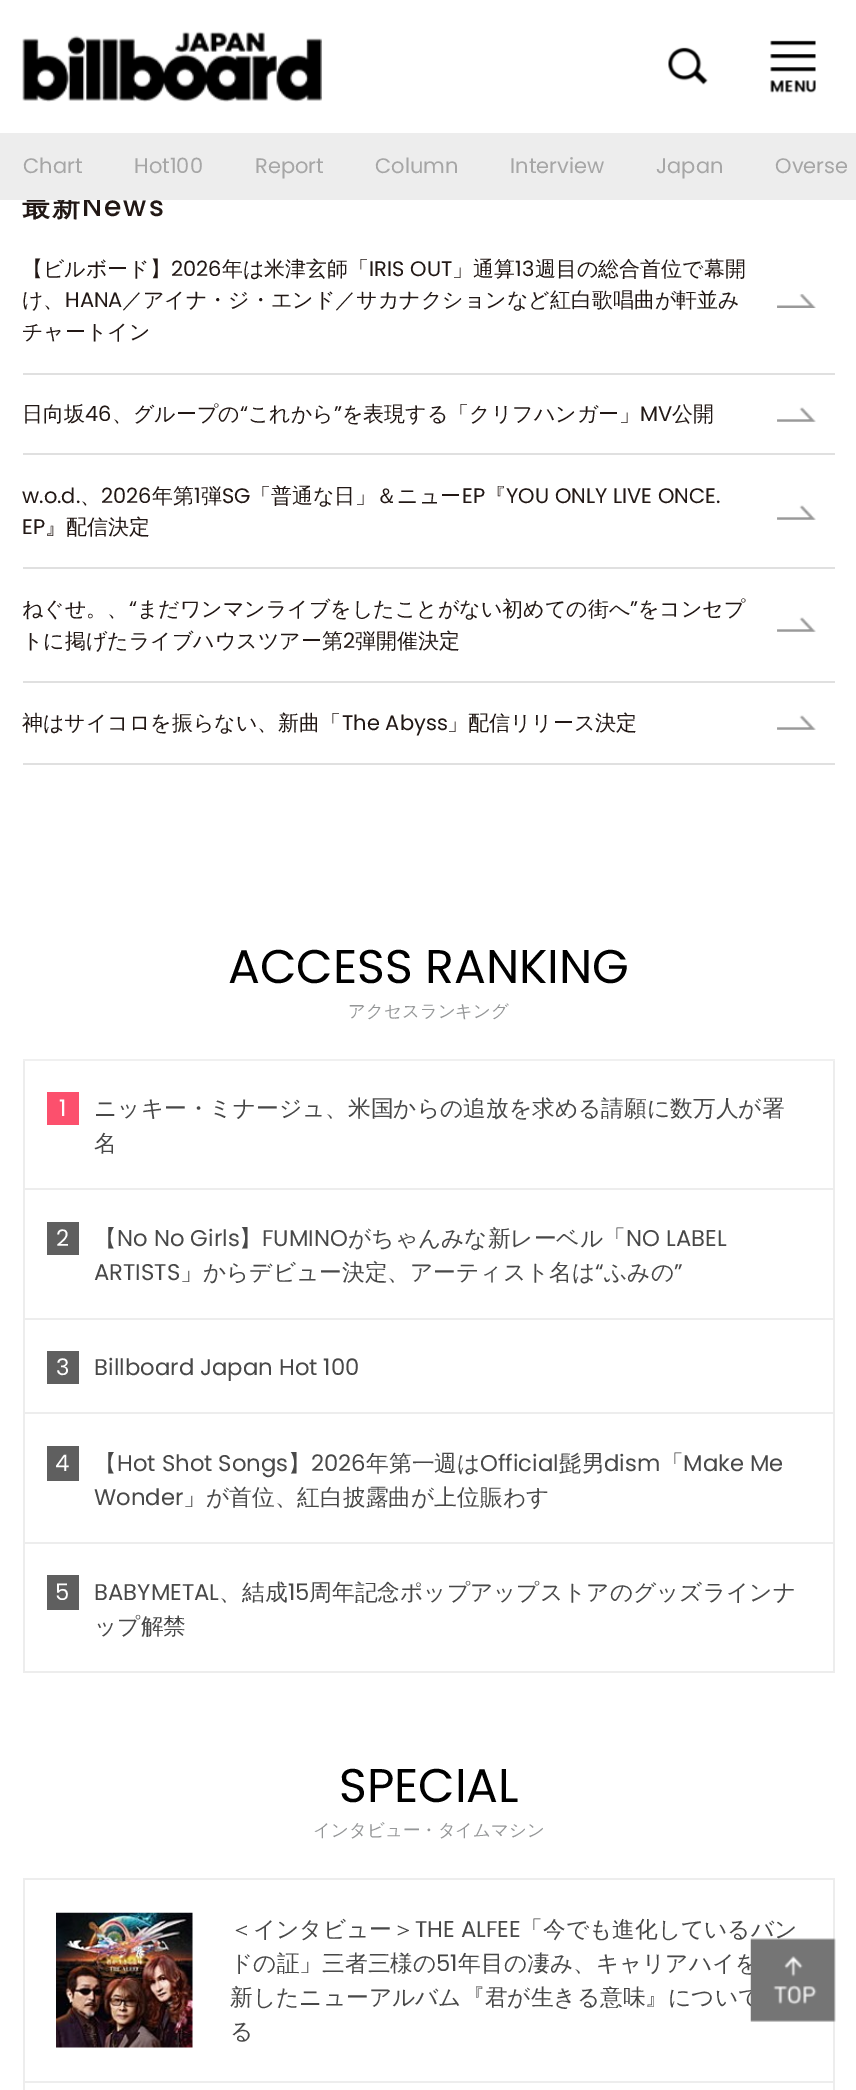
%!PS-Adobe-3.0
%%BoundingBox: 0 0 856 2090
%%LanguageLevel: 3
%%Pages: 1
%%EndComments
%%BeginProlog
/drawimage { 5 dict begin { /h /w /y /x /name } { exch def } forall
  gsave x y translate w h scale
  w h 8 [w 0 0 h 0 0] name (r) file false 3 colorimage grestore end } def
%%EndProlog
%%BeginSetup
<< /PageSize [856 2090] >> setpagedevice
%%EndSetup
%%Page: 1 1
0 2090 translate 1 -1 scale
4 setmiterlimit
1 setgray
0 0 856 2090 rectfill
(images/1.raw) 22 31 300 71 drawimage
(images/2.raw) 668 47 40 38 drawimage
(images/3.raw) 770 40 46 53 drawimage
0.878 setgray
23 373 812 2 rectfill
(images/4.raw) 777 294 39 14 drawimage
23 453 812 2 rectfill
(images/5.raw) 777 407 39 15 drawimage
23 567 812 2 rectfill
(images/5.raw) 777 505 39 15 drawimage
23 681 812 2 rectfill
(images/5.raw) 777 617 39 15 drawimage
23 763 812 2 rectfill
(images/5.raw) 777 715 39 15 drawimage
0.941 setgray
23 1059 812 2 rectfill
0.929 setgray
833 1061 2 612 rectfill
23 1188 812 2 rectfill
23 1061 2 129 rectfill
0.988 0.314 0.427 setrgbcolor
47 1092 32 33 rectfill
0.929 setgray
23 1318 812 2 rectfill
23 1190 2 130 rectfill
0.373 setgray
47 1222 32 33 rectfill
0.929 setgray
23 1412 812 2 rectfill
23 1320 2 94 rectfill
0.373 setgray
47 1351 32 33 rectfill
0.929 setgray
23 1542 812 2 rectfill
23 1414 2 130 rectfill
0.373 setgray
47 1446 32 35 rectfill
0.929 setgray
23 1671 812 2 rectfill
23 1544 2 129 rectfill
0.373 setgray
47 1575 32 35 rectfill
0.929 setgray
23 1878 812 2 rectfill
833 1878 2 203 rectfill
23 1878 2 203 rectfill
(images/6.raw) 56 1912 137 136 drawimage
23 2081 812 2 rectfill
833 2081 2 9 rectfill
23 2081 2 9 rectfill
/WenQuanYiZenHei-Bold [28 0 0 -28 0 0] selectfont
0.133 0.094 0.082 setrgbcolor
22 216 moveto 2 0 (最新) ashow
/Poppins-Medium [28 0 0 -28 0 0] selectfont
82 216 moveto 2 0 (News) ashow
0.929 setgray
0 133 856 67 rectfill
/Poppins-Regular [21 0 0 -21 0 0] selectfont
0.651 setgray
775 173 moveto (Overse) show
656 173 moveto (Japan) show
510 173 moveto (Interview) show
375 173 moveto (Column) show
255 173 moveto (Report) show
134 173 moveto (Hot100) show
23 173 moveto (Chart) show
/WenQuanYiZenHei-Medium [21 0 0 -21 0 0] selectfont
0.133 0.094 0.082 setrgbcolor
22 276 moveto (【ビルボード】) show
/Poppins-Regular [21 0 0 -21 0 0] selectfont
171 276 moveto (2026) show
/WenQuanYiZenHei-Medium [21 0 0 -21 0 0] selectfont
222 276 moveto (年は米津玄師「) show
/Poppins-Regular [21 0 0 -21 0 0] selectfont
369 276 moveto (IRIS OUT) show
/WenQuanYiZenHei-Medium [21 0 0 -21 0 0] selectfont
452 276 moveto (」通算) show
/Poppins-Regular [21 0 0 -21 0 0] selectfont
515 276 moveto (13) show
/WenQuanYiZenHei-Medium [21 0 0 -21 0 0] selectfont
535 276 moveto (週目の総合首位で幕開) show
22 307 moveto (け、) show
/Poppins-Regular [21 0 0 -21 0 0] selectfont
65 307 moveto (HANA) show
/WenQuanYiZenHei-Medium [21 0 0 -21 0 0] selectfont
122 307 moveto (／アイナ・ジ・エンド／サカナクションなど紅白歌唱曲が軒並み) show
22 339 moveto (チャートイン) show
22 421 moveto (日向坂) show
/Poppins-Regular [21 0 0 -21 0 0] selectfont
85 421 moveto (46) show
/WenQuanYiZenHei-Medium [21 0 0 -21 0 0] selectfont
112 421 moveto (、グループの) show
/Poppins-Regular [21 0 0 -21 0 0] selectfont
240 421 moveto (“) show
/WenQuanYiZenHei-Medium [21 0 0 -21 0 0] selectfont
248 421 moveto (これから) show
/Poppins-Regular [21 0 0 -21 0 0] selectfont
334 421 moveto (”) show
/WenQuanYiZenHei-Medium [21 0 0 -21 0 0] selectfont
342 421 moveto (を表現する「クリフハンガー」) show
/Poppins-Regular [21 0 0 -21 0 0] selectfont
640 421 moveto (MV) show
/WenQuanYiZenHei-Medium [21 0 0 -21 0 0] selectfont
672 421 moveto (公開) show
/Poppins-Regular [21 0 0 -21 0 0] selectfont
22 503 moveto (w.o.d.) show
/WenQuanYiZenHei-Medium [21 0 0 -21 0 0] selectfont
80 503 moveto (、) show
/Poppins-Regular [21 0 0 -21 0 0] selectfont
101 503 moveto (2026) show
/WenQuanYiZenHei-Medium [21 0 0 -21 0 0] selectfont
152 503 moveto (年第) show
/Poppins-Regular [21 0 0 -21 0 0] selectfont
194 503 moveto (1) show
/WenQuanYiZenHei-Medium [21 0 0 -21 0 0] selectfont
201 503 moveto (弾) show
/Poppins-Regular [21 0 0 -21 0 0] selectfont
222 503 moveto (SG) show
/WenQuanYiZenHei-Medium [21 0 0 -21 0 0] selectfont
250 503 moveto (「普通な日」＆ニュー) show
/Poppins-Regular [21 0 0 -21 0 0] selectfont
462 503 moveto (EP) show
/WenQuanYiZenHei-Medium [21 0 0 -21 0 0] selectfont
485 503 moveto (『) show
/Poppins-Regular [21 0 0 -21 0 0] selectfont
506 503 moveto (YOU ONLY LIVE ONCE.) show
22 534 moveto (EP) show
/WenQuanYiZenHei-Medium [21 0 0 -21 0 0] selectfont
45 534 moveto (』配信決定) show
22 616 moveto (ねぐせ。、) show
/Poppins-Regular [21 0 0 -21 0 0] selectfont
129 616 moveto (“) show
/WenQuanYiZenHei-Medium [21 0 0 -21 0 0] selectfont
137 616 moveto (まだワンマンライブをしたことがない初めての街へ) show
/Poppins-Regular [21 0 0 -21 0 0] selectfont
630 616 moveto (”) show
/WenQuanYiZenHei-Medium [21 0 0 -21 0 0] selectfont
638 616 moveto (をコンセプ) show
22 648 moveto (トに掲げたライブハウスツアー第) show
/Poppins-Regular [21 0 0 -21 0 0] selectfont
343 648 moveto (2) show
/WenQuanYiZenHei-Medium [21 0 0 -21 0 0] selectfont
355 648 moveto (弾開催決定) show
22 730 moveto (神はサイコロを振らない、新曲「) show
/Poppins-Regular [21 0 0 -21 0 0] selectfont
342 730 moveto (The Abyss) show
/WenQuanYiZenHei-Medium [21 0 0 -21 0 0] selectfont
447 730 moveto (」配信リリース決定) show
/Poppins-Regular [47.25 0 0 -47.25 0 0] selectfont
0 setgray
228 983 moveto (ACCESS RANKING) show
/WenQuanYiZenHei-Medium [17.5 0 0 -17.5 0 0] selectfont
0.58 0.588 0.592 setrgbcolor
348 1017 moveto (アクセスランキング) show
/Poppins-Regular [22.75 0 0 -22.75 0 0] selectfont
1 setgray
59 1116 moveto (1) show
/WenQuanYiZenHei-Medium [22.75 0 0 -22.75 0 0] selectfont
0.282 setgray
94 1116 moveto (ニッキー・ミナージュ、米国からの追放を求める請願に数万人が署) show
94 1151 moveto (名) show
/Poppins-Regular [22.75 0 0 -22.75 0 0] selectfont
1 setgray
56 1246 moveto (2) show
/WenQuanYiZenHei-Medium [22.75 0 0 -22.75 0 0] selectfont
0.282 setgray
94 1246 moveto (【) show
/Poppins-Regular [22.75 0 0 -22.75 0 0] selectfont
117 1246 moveto (No No Girls) show
/WenQuanYiZenHei-Medium [22.75 0 0 -22.75 0 0] selectfont
239 1246 moveto (】) show
/Poppins-Regular [22.75 0 0 -22.75 0 0] selectfont
262 1246 moveto (FUMINO) show
/WenQuanYiZenHei-Medium [22.75 0 0 -22.75 0 0] selectfont
348 1246 moveto (がちゃんみな新レーベル「) show
/Poppins-Regular [22.75 0 0 -22.75 0 0] selectfont
626 1246 moveto (NO LABEL) show
94 1280 moveto (ARTISTS) show
/WenQuanYiZenHei-Medium [22.75 0 0 -22.75 0 0] selectfont
180 1280 moveto (」からデビュー決定、アーティスト名は) show
/Poppins-Regular [22.75 0 0 -22.75 0 0] selectfont
595 1280 moveto (“) show
/WenQuanYiZenHei-Medium [22.75 0 0 -22.75 0 0] selectfont
604 1280 moveto (ふみの) show
/Poppins-Regular [22.75 0 0 -22.75 0 0] selectfont
674 1280 moveto (”) show
1 setgray
56 1375 moveto (3) show
0.282 setgray
94 1375 moveto (Billboard Japan Hot 100) show
1 setgray
55 1471 moveto (4) show
/WenQuanYiZenHei-Medium [22.75 0 0 -22.75 0 0] selectfont
0.282 setgray
94 1471 moveto (【) show
/Poppins-Regular [22.75 0 0 -22.75 0 0] selectfont
117 1471 moveto (Hot Shot Songs) show
/WenQuanYiZenHei-Medium [22.75 0 0 -22.75 0 0] selectfont
288 1471 moveto (】) show
/Poppins-Regular [22.75 0 0 -22.75 0 0] selectfont
311 1471 moveto (2026) show
/WenQuanYiZenHei-Medium [22.75 0 0 -22.75 0 0] selectfont
366 1471 moveto (年第一週は) show
/Poppins-Regular [22.75 0 0 -22.75 0 0] selectfont
480 1471 moveto (Official) show
/WenQuanYiZenHei-Medium [22.75 0 0 -22.75 0 0] selectfont
559 1471 moveto (髭男) show
/Poppins-Regular [22.75 0 0 -22.75 0 0] selectfont
604 1471 moveto (dism) show
/WenQuanYiZenHei-Medium [22.75 0 0 -22.75 0 0] selectfont
661 1471 moveto (「) show
/Poppins-Regular [22.75 0 0 -22.75 0 0] selectfont
683 1471 moveto (Make Me) show
94 1505 moveto (Wonder) show
/WenQuanYiZenHei-Medium [22.75 0 0 -22.75 0 0] selectfont
183 1505 moveto (」が首位、紅白披露曲が上位賑わす) show
/Poppins-Regular [22.75 0 0 -22.75 0 0] selectfont
1 setgray
55 1600 moveto (5) show
0.282 setgray
94 1600 moveto (BABYMETAL) show
/WenQuanYiZenHei-Medium [22.75 0 0 -22.75 0 0] selectfont
219 1600 moveto (、結成) show
/Poppins-Regular [22.75 0 0 -22.75 0 0] selectfont
288 1600 moveto (15) show
/WenQuanYiZenHei-Medium [22.75 0 0 -22.75 0 0] selectfont
309 1600 moveto (周年記念ポップアップストアのグッズラインナ) show
94 1634 moveto (ップ解禁) show
/Poppins-Regular [47.25 0 0 -47.25 0 0] selectfont
0 setgray
339 1802 moveto (SPECIAL) show
/WenQuanYiZenHei-Medium [17.5 0 0 -17.5 0 0] selectfont
0.58 0.588 0.592 setrgbcolor
313 1836 moveto (インタビュー・タイムマシン) show
/WenQuanYiZenHei-Medium [22.75 0 0 -22.75 0 0] selectfont
0.282 setgray
230 1937 moveto (＜インタビュー＞) show
/Poppins-Regular [22.75 0 0 -22.75 0 0] selectfont
415 1937 moveto (THE ALFEE) show
/WenQuanYiZenHei-Medium [22.75 0 0 -22.75 0 0] selectfont
520 1937 moveto (「今でも進化しているバン) show
230 1971 moveto (ドの証」三者三様の) show
/Poppins-Regular [22.75 0 0 -22.75 0 0] selectfont
436 1971 moveto (51) show
/WenQuanYiZenHei-Medium [22.75 0 0 -22.75 0 0] selectfont
458 1971 moveto (年目の凄み、キャリアハイを) show
230 2005 moveto (新したニューアルバム『君が生きる意味』について) show
230 2039 moveto (る) show
(images/7.raw) 750 1938 86 84 drawimage
showpage
%%EOF
